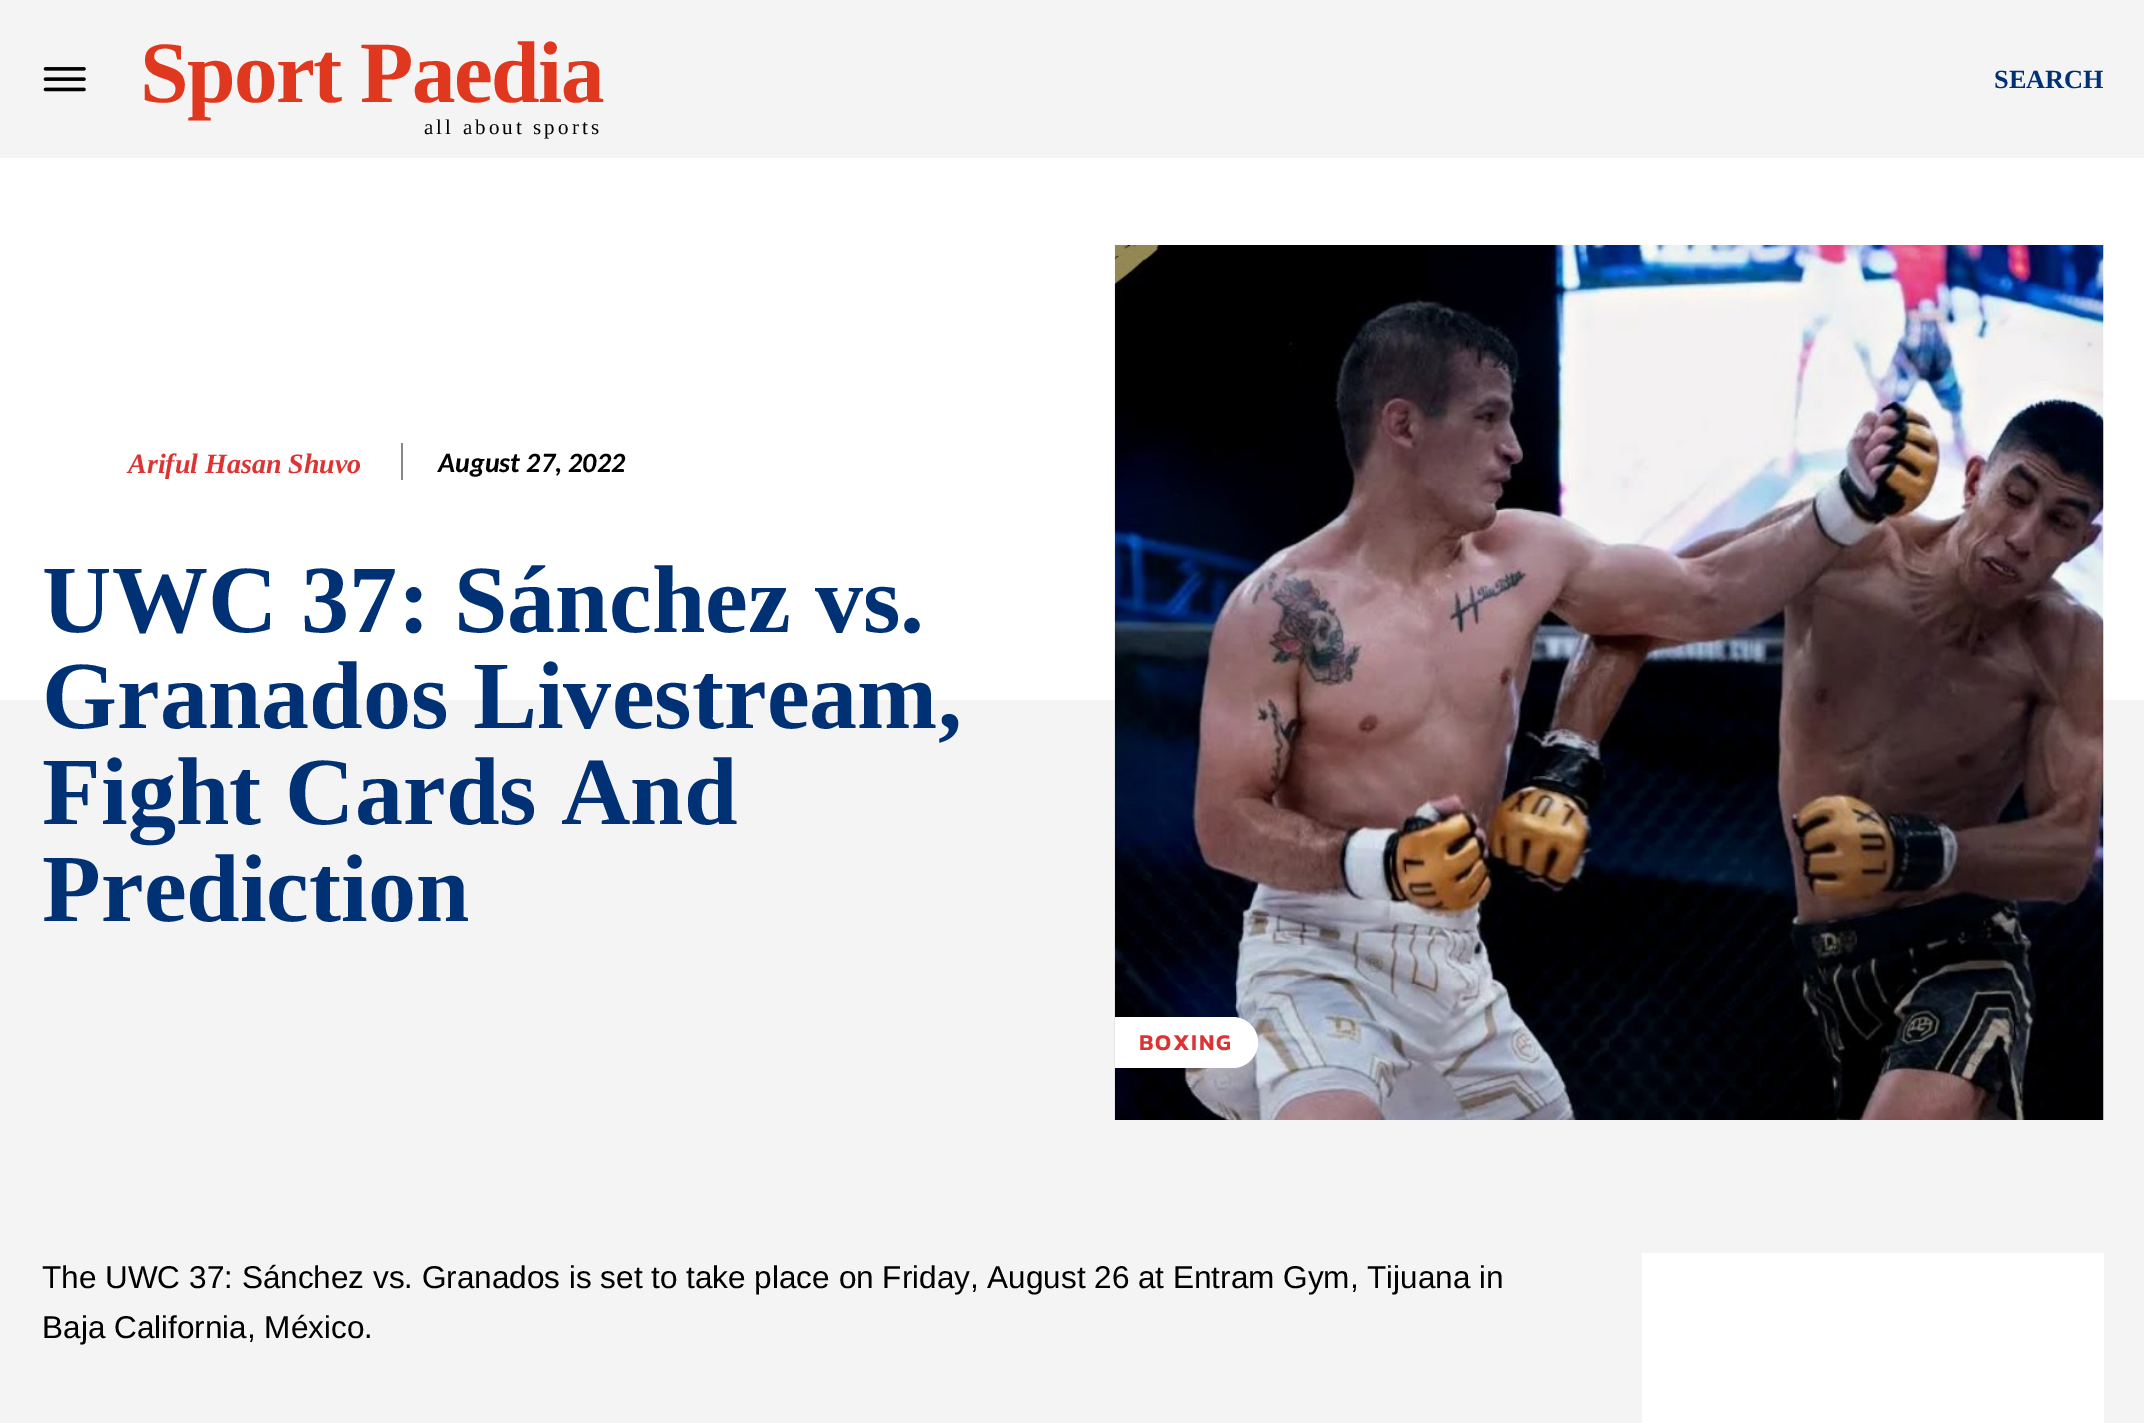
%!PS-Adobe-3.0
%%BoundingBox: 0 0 2144 1423
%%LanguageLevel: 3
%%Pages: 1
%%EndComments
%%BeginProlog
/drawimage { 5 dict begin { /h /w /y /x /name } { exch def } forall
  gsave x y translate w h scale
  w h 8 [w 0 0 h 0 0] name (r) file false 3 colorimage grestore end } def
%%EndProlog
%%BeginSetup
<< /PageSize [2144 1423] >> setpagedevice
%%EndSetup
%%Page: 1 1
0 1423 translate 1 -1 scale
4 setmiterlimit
1 setgray
0 0 2144 1423 rectfill
0.957 setgray
0 0 2144 158 rectfill
(images/1.raw) 43 67 43 25 drawimage
0.533 setgray
401 443 2 37 rectfill
0.957 setgray
0 700 2144 723 rectfill
(images/2.raw) 1114 245 990 875 drawimage
1 setgray
newpath 1115 1017 moveto 1232.5 1017 lineto 1246.5 1017 1258 1028.5 1258 1042.5 curveto 1258 1056.5 1246.5 1068 1232.5 1068 curveto 1115 1068 lineto closepath fill
1642 1253 462 170 rectfill
/LiberationSerif-Bold [87.5 0 0 -87.5 0 0] selectfont
0.875 0.22 0.122 setrgbcolor
140 102 moveto -1.75 0 (Sport Paedia) ashow
/LiberationSerif-Regular [21 0 0 -21 0 0] selectfont
0 setgray
424 134 moveto 3.1 0 (all about sports) ashow
/LiberationSerif-Bold [26.25 0 0 -26.25 0 0] selectfont
0.004 0.192 0.459 setrgbcolor
1994 88 moveto (SEARCH) show
/LiberationSerif-BoldItalic [28 0 0 -28 0 0] selectfont
0.867 0.2 0.2 setrgbcolor
128 473 moveto (Ariful Hasan Shuvo) show
/Carlito-BoldItalic [28 0 0 -28 0 0] selectfont
0 setgray
438 472 moveto (August 27, 2022) show
/LiberationSerif-Bold [96.25 0 0 -96.25 0 0] selectfont
0.004 0.192 0.459 setrgbcolor
42 632 moveto (UWC 37: Sánchez vs.) show
42 728 moveto (Granados Livestream,) show
42 824 moveto (Fight Cards And) show
42 921 moveto (Prediction) show
/Kanit-SemiBold [22.75 0 0 -22.75 0 0] selectfont
0.867 0.2 0.2 setrgbcolor
1139 1050 moveto 1.75 0 (BOXING) ashow
/LiberationSans-Regular [31.5 0 0 -31.5 0 0] selectfont
0 setgray
42 1288 moveto (The UWC 37: Sánchez vs. Granados is set to take place on Friday, August 26 at Entram Gym, Tijuana in) show
42 1338 moveto (Baja California, México.) show
showpage
%%EOF
